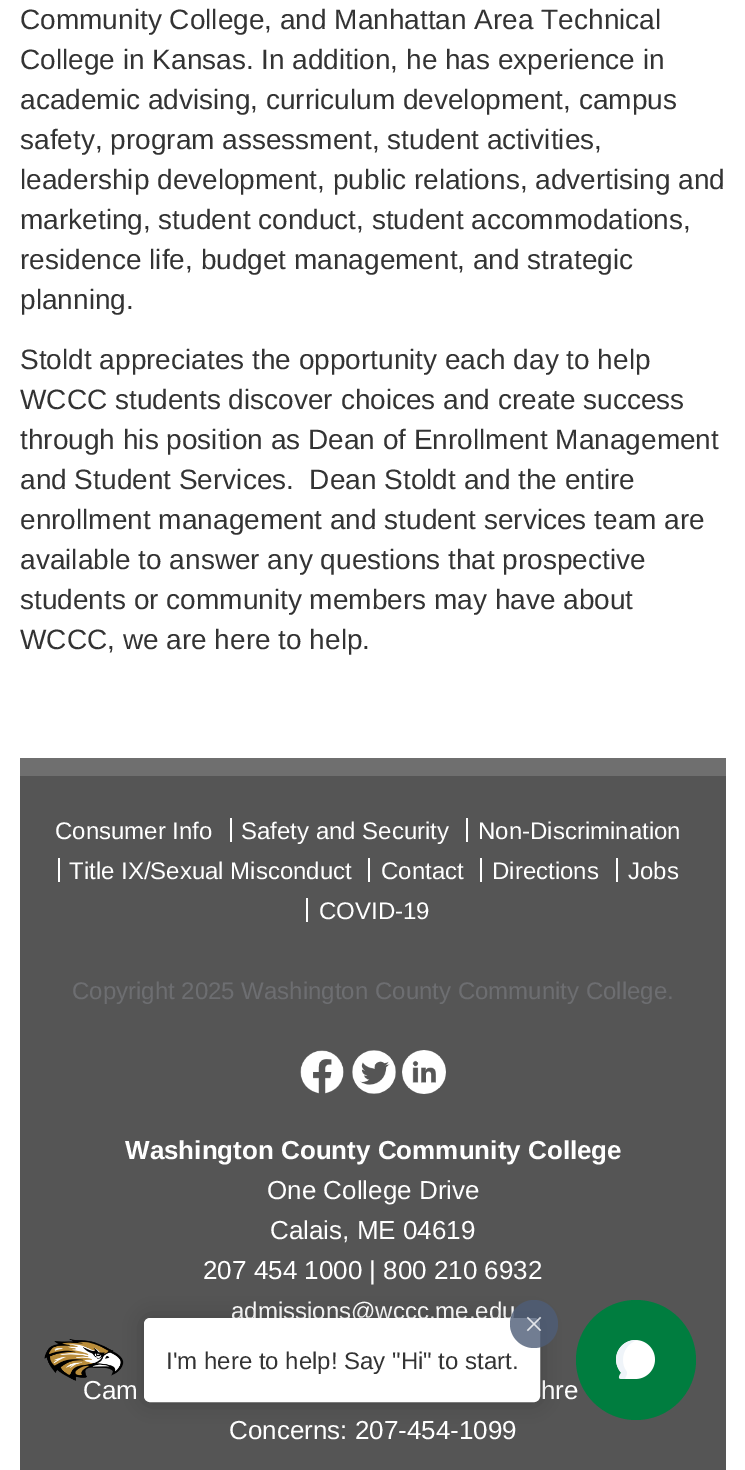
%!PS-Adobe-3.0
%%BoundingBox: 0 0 745 1470
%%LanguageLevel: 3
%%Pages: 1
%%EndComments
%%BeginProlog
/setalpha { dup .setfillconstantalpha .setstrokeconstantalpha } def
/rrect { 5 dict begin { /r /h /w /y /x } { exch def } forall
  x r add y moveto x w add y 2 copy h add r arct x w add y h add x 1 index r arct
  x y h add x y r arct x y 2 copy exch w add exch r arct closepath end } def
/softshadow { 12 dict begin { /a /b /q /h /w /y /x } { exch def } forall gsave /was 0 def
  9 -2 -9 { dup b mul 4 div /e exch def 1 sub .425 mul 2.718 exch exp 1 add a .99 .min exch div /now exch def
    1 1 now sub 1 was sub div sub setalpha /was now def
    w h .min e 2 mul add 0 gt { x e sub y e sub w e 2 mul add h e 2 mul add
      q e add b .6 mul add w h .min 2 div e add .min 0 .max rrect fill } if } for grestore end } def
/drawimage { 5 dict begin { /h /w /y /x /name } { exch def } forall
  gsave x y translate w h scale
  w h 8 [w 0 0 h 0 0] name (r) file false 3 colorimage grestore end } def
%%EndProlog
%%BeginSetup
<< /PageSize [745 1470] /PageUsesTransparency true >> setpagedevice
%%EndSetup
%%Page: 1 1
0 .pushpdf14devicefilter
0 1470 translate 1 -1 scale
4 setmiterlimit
1 setgray
0 0 745 1470 rectfill
0.333 setgray
20 776 706 694 rectfill
0.435 setgray
20 758 706 18 rectfill
1 setgray
230 818 2 24 rectfill
466 818 2 24 rectfill
58 858 2 24 rectfill
368 858 2 24 rectfill
480 858 2 24 rectfill
616 858 2 24 rectfill
306 898 2 24 rectfill
(images/1.raw) 300 1050 44 44 drawimage
(images/2.raw) 352 1050 44 44 drawimage
(images/3.raw) 402 1050 44 44 drawimage
/LiberationSans-Regular [28 0 0 -28 0 0] selectfont
0.2 setgray
20 29 moveto (Community College, and Manhattan Area Technical) show
20 69 moveto (College in Kansas. In addition, he has experience in) show
20 109 moveto (academic advising, curriculum development, campus) show
20 149 moveto (safety, program assessment, student activities,) show
20 189 moveto (leadership development, public relations, advertising and) show
20 229 moveto (marketing, student conduct, student accommodations,) show
20 269 moveto (residence life, budget management, and strategic) show
20 309 moveto (planning.) show
20 369 moveto (Stoldt appreciates the opportunity each day to help) show
20 409 moveto (WCCC students discover choices and create success) show
20 449 moveto (through his position as Dean of Enrollment Management) show
20 489 moveto (and Student Services.  Dean Stoldt and the entire) show
20 529 moveto (enrollment management and student services team are) show
20 569 moveto (available to answer any questions that prospective) show
20 609 moveto (students or community members may have about) show
20 649 moveto (WCCC, we are here to help.) show
/LiberationSans-Regular [24 0 0 -24 0 0] selectfont
1 setgray
55 839 moveto (Consumer Info) show
241 839 moveto (Safety and Security) show
478 839 moveto (Non-Discrimination) show
69 879 moveto (Title IX/Sexual Misconduct) show
381 879 moveto (Contact) show
492 879 moveto (Directions) show
628 879 moveto (Jobs) show
319 919 moveto (COVID-19) show
0.427 0.431 0.443 setrgbcolor
72 999 moveto (Copyright 2025 Washington County Community College.) show
/LiberationSans-Bold [26 0 0 -26 0 0] selectfont
1 setgray
125 1159 moveto (Washington County Community College) show
/LiberationSans-Regular [26 0 0 -26 0 0] selectfont
267 1199 moveto (One College Drive) show
270 1239 moveto (Calais, ME 04619) show
203 1279 moveto (207 454 1000 | 800 210 6932) show
/LiberationSans-Regular [24 0 0 -24 0 0] selectfont
231 1319 moveto (admissions@wccc.me.edu) show
/LiberationSans-Regular [26 0 0 -26 0 0] selectfont
83 1399 moveto (Cam) show
541 1399 moveto (hre) show
229 1439 moveto (Concerns: 207-454-1099) show
(images/4.raw) 44 1339 80 42 drawimage
0 setgray
144 1318 396 84 6 10 0.2 softshadow
1 setgray
145 1319 394 82 5 rrect gsave fill grestore
2 setlinewidth
stroke
0.8 setalpha
0.306 0.365 0.467 setrgbcolor
newpath 534 1324 24 0 360 arc closepath fill
1 setalpha
(images/5.raw) 526 1316 16 16 drawimage
/LiberationSans-Regular [24 0 0 -24 0 0] selectfont
0.2 setgray
166 1369 moveto (I'm here to help! Say "Hi" to start.) show
0 0.49 0.247 setrgbcolor
newpath 636 1360 60 0 360 arc closepath fill
(images/6.raw) 616 1340 39 39 drawimage
.poppdf14devicefilter showpage
%%EOF
